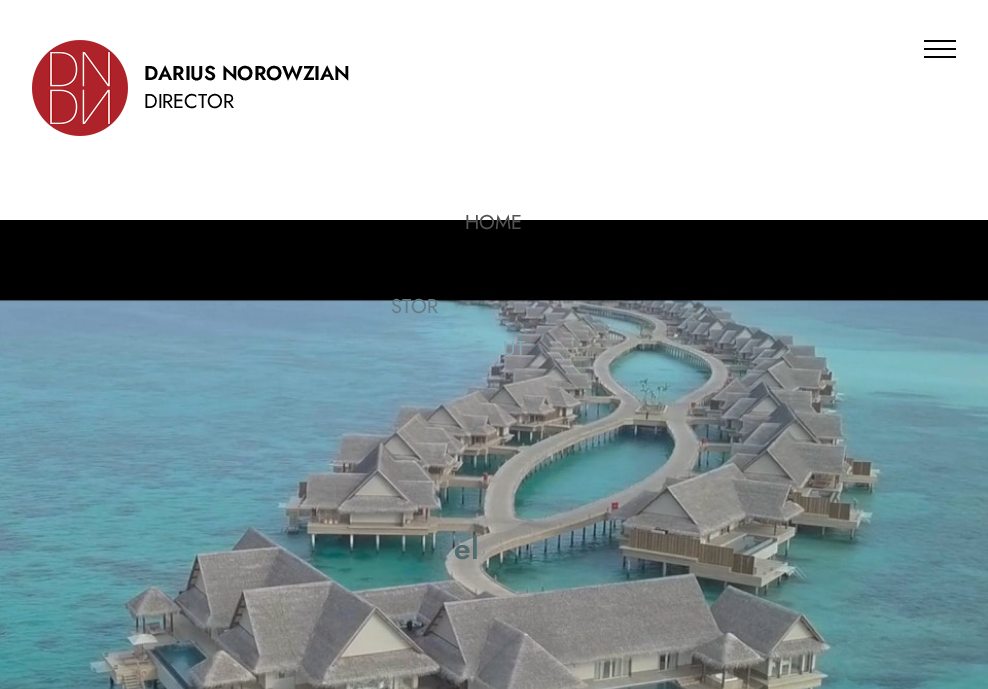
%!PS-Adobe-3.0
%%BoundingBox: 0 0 988 689
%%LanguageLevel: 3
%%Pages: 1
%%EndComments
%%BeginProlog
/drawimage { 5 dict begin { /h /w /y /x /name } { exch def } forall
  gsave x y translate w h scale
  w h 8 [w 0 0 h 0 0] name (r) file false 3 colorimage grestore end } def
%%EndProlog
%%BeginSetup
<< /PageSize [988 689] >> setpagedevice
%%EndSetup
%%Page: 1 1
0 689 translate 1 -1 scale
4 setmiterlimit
1 setgray
0 0 988 689 rectfill
0 setgray
924 40 32 2 rectfill
924 48 32 2 rectfill
924 56 32 2 rectfill
(images/1.raw) 32 40 96 96 drawimage
(images/2.raw) 0 220 988 469 drawimage
/Jost-SemiBold [20 0 0 -20 0 0] selectfont
144 80 moveto -0.1 0 (DARIUS NOROWZIAN) ashow
/Jost-Regular [20 0 0 -20 0 0] selectfont
144 108 moveto -0.1 0 (DIRECTOR) ashow
0.325 setgray
465 229 moveto (HOME) show
0.404 0.482 0.518 setrgbcolor
391 313 moveto (STOR) show
0.51 0.655 0.71 setrgbcolor
503 355 moveto (UT) show
/Jost-SemiBold [30 0 0 -30 0 0] selectfont
0.314 0.424 0.435 setrgbcolor
454 559 moveto (el) show
showpage
%%EOF
